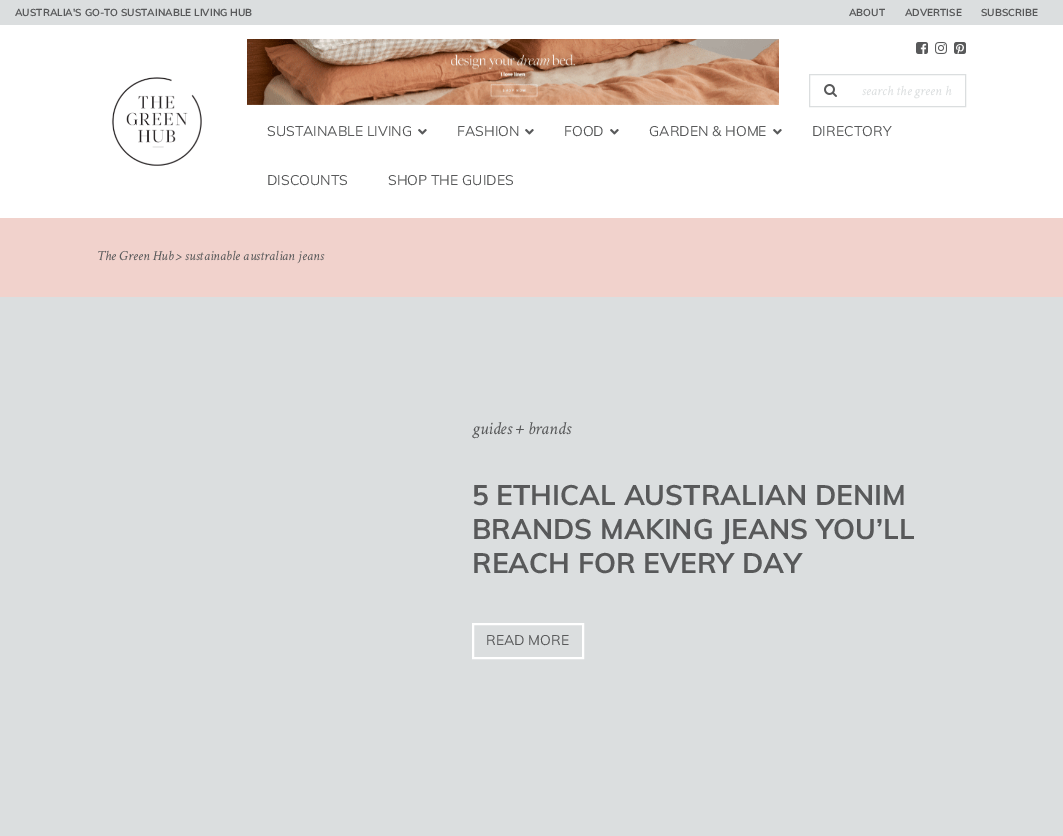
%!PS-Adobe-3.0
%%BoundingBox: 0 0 1063 836
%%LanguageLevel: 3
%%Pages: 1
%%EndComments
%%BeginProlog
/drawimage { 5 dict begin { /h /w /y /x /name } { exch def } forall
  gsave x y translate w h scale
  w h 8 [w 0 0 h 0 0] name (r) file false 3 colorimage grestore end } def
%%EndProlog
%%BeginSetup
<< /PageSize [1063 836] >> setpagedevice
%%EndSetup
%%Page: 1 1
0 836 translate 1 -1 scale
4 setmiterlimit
0.945 0.824 0.8 setrgbcolor
0 0 1063 836 rectfill
1 setgray
0 25 1063 193 rectfill
0.859 0.871 0.875 setrgbcolor
0 0 1063 25 rectfill
(images/1.raw) 111 77 91 89 drawimage
(images/2.raw) 247 39 532 66 drawimage
(images/3.raw) 916 42 12 12 drawimage
(images/4.raw) 935 42 12 12 drawimage
(images/5.raw) 954 42 12 12 drawimage
809.5 74.5 156 32 rectstroke
(images/6.raw) 824 84 13 13 drawimage
(images/7.raw) 418 129 9 6 drawimage
(images/7.raw) 525 129 9 6 drawimage
(images/7.raw) 610 129 9 6 drawimage
(images/7.raw) 773 129 9 6 drawimage
0 297 1063 539 rectfill
1 setgray
2 setlinewidth
473 624 110 34 rectstroke
/Muli-Bold [10 0 0 -10 0 0] selectfont
0.345 0.349 0.353 setrgbcolor
15 16 moveto (AUSTRALIA'S GO-TO SUSTAINABLE LIVING HUB) show
849 16 moveto (ABOUT) show
905 16 moveto (ADVERTISE) show
981 16 moveto (SUBSCRIBE) show
/CrimsonText-Italic [14 0 0 -14 0 0] selectfont
0.859 0.871 0.875 setrgbcolor
862 95 moveto (search the green h) show
/Muli-Regular [14 0 0 -14 0 0] selectfont
0.345 0.349 0.353 setrgbcolor
267 136 moveto (SUSTAINABLE LIVING) show
457 136 moveto (FASHION) show
564 136 moveto (FOOD) show
649 136 moveto (GARDEN & HOME) show
812 136 moveto (DIRECTORY) show
267 185 moveto (DISCOUNTS) show
388 185 moveto (SHOP THE GUIDES) show
/CrimsonText-Italic [14 0 0 -14 0 0] selectfont
97 260 moveto (The Green Hub > sustainable australian jeans) show
/CrimsonText-Italic [18 0 0 -18 0 0] selectfont
472 434 moveto (guides + brands) show
/Muli-Bold [28 0 0 -28 0 0] selectfont
472 505 moveto (5 ETHICAL AUSTRALIAN DENIM) show
472 539 moveto (BRANDS MAKING JEANS YOU’LL) show
472 573 moveto (REACH FOR EVERY DAY) show
/Muli-Regular [14 0 0 -14 0 0] selectfont
486 645 moveto (READ MORE) show
showpage
%%EOF
